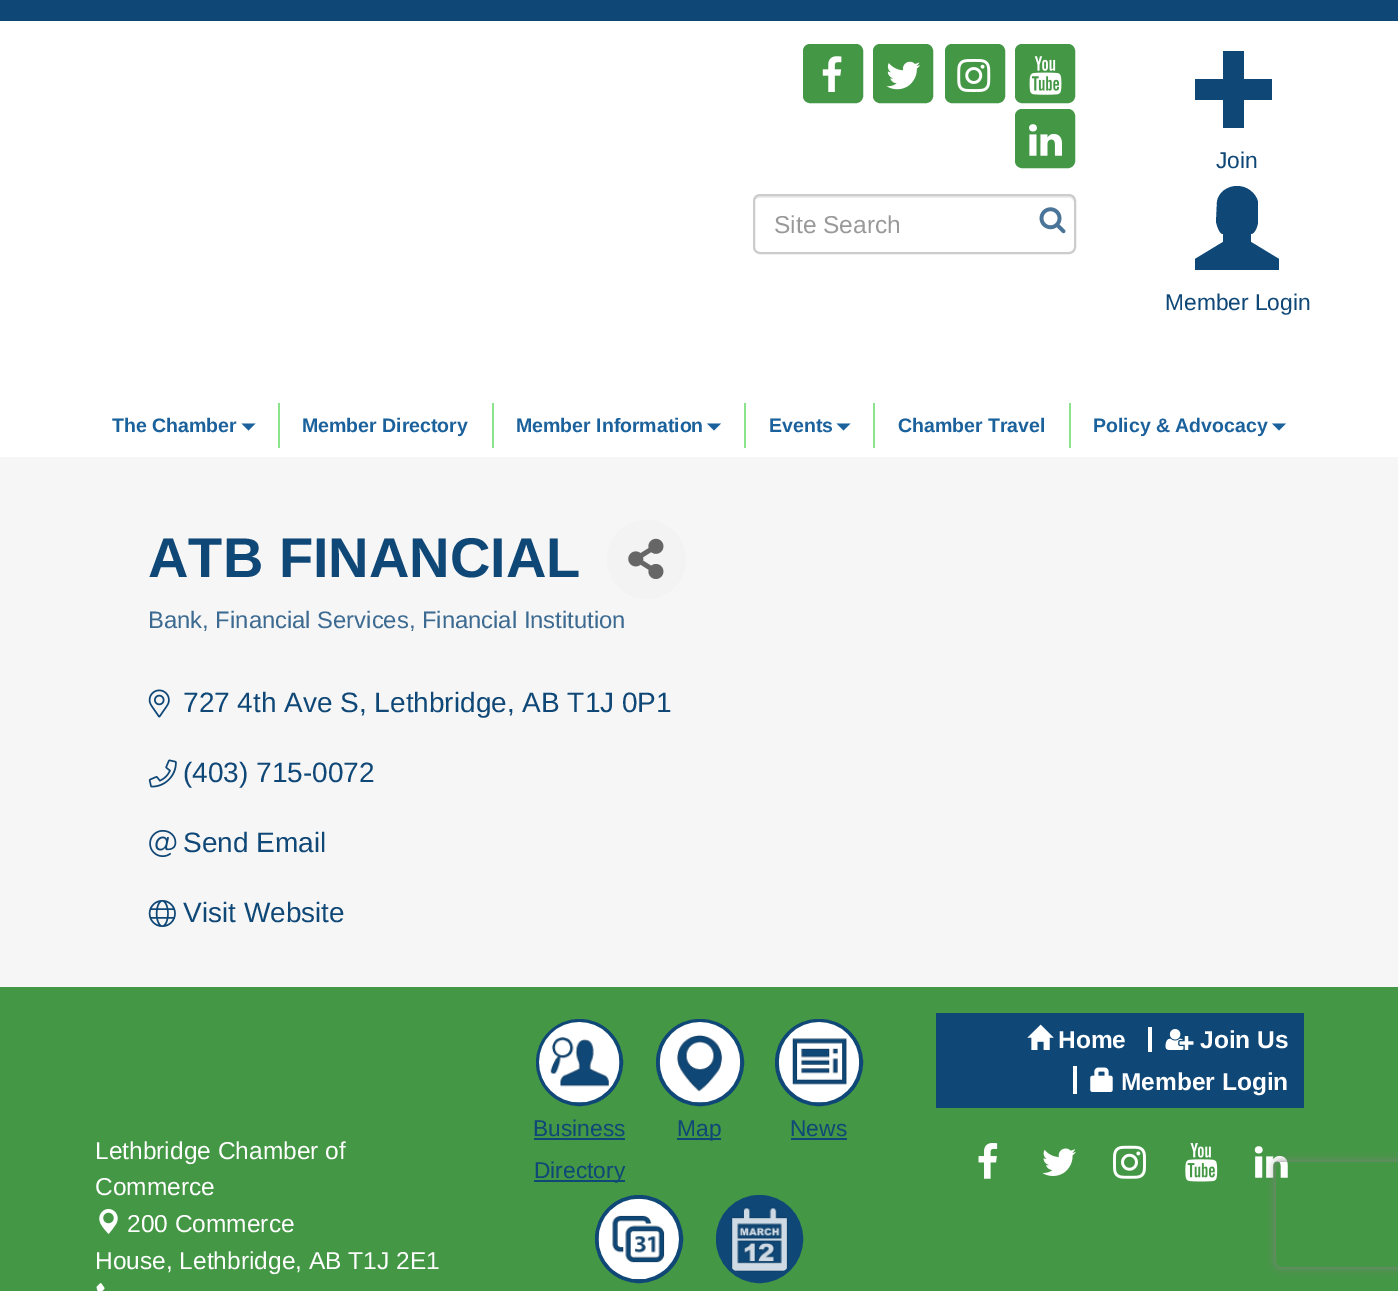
%!PS-Adobe-3.0
%%BoundingBox: 0 0 1398 1291
%%LanguageLevel: 3
%%Pages: 1
%%EndComments
%%BeginProlog
/setalpha { dup .setfillconstantalpha .setstrokeconstantalpha } def
/rrect { 5 dict begin { /r /h /w /y /x } { exch def } forall
  x r add y moveto x w add y 2 copy h add r arct x w add y h add x 1 index r arct
  x y h add x y r arct x y 2 copy exch w add exch r arct closepath end } def
/softshadow { 12 dict begin { /a /b /q /h /w /y /x } { exch def } forall gsave /was 0 def
  9 -2 -9 { dup b mul 4 div /e exch def 1 sub .425 mul 2.718 exch exp 1 add a .99 .min exch div /now exch def
    1 1 now sub 1 was sub div sub setalpha /was now def
    w h .min e 2 mul add 0 gt { x e sub y e sub w e 2 mul add h e 2 mul add
      q e add b .6 mul add w h .min 2 div e add .min 0 .max rrect fill } if } for grestore end } def
/drawimage { 5 dict begin { /h /w /y /x /name } { exch def } forall
  gsave x y translate w h scale
  w h 8 [w 0 0 h 0 0] name (r) file false 3 colorimage grestore end } def
%%EndProlog
%%BeginSetup
<< /PageSize [1398 1291] /PageUsesTransparency true >> setpagedevice
%%EndSetup
%%Page: 1 1
0 .pushpdf14devicefilter
0 1291 translate 1 -1 scale
4 setmiterlimit
0.965 setgray
0 0 1398 1291 rectfill
1 setgray
0 21 1398 436 rectfill
0.059 0.278 0.463 setrgbcolor
0 0 1398 21 rectfill
0.267 0.592 0.271 setrgbcolor
804 45 58 57 6 rrect gsave fill grestore
2 setlinewidth
stroke
(images/1.raw) 822 56 20 36 drawimage
874 45 58 57 6 rrect gsave fill grestore
stroke
(images/2.raw) 886 61 35 29 drawimage
946 45 58 57 6 rrect gsave fill grestore
stroke
(images/3.raw) 957 59 34 33 drawimage
1016 45 58 57 6 rrect gsave fill grestore
stroke
(images/4.raw) 1029 56 33 39 drawimage
1016 110 58 57 6 rrect gsave fill grestore
stroke
(images/5.raw) 1029 124 33 32 drawimage
0.925 setgray
newpath 760 198 moveto 1069 198 lineto 1072 198 1074 200 1074 203 curveto 1074 248 lineto 1074 251 lineto 1074 250 1075 248 1075 247 curveto 1075 201 lineto 1075 198 1073 196 1070 196 curveto 759 196 lineto 756 196 754 198 754 201 curveto 754 203 lineto 754 200 757 198 760 198 curveto closepath fill
0.8 setgray
754 195 321 58 6 rrect stroke
(images/6.raw) 1039 207 27 27 drawimage
0.059 0.278 0.463 setrgbcolor
newpath 1195 100 moveto 1195 79 lineto 1223 79 lineto 1223 51 lineto 1244 51 lineto 1244 79 lineto 1272 79 lineto 1272 100 lineto 1244 100 lineto 1244 128 lineto 1223 128 lineto 1223 100 lineto closepath fill
newpath 1195 270 moveto 1195 259 lineto 1223 242 lineto 1223 234 lineto 1219 234 1217 225 1216 222 curveto 1217 202 lineto 1218 193 1227 186 1237 186 curveto 1247 186 1256 193 1258 202 curveto 1258 222 lineto 1258 225 1255 234 1251 234 curveto 1251 242 lineto 1279 259 lineto 1279 270 lineto closepath fill
0.106 0.38 0.612 setrgbcolor
newpath 241.5 423.5 moveto 255.5 423.5 lineto 248.5 430.5 lineto closepath fill
0.545 0.894 0.549 setrgbcolor
278 403 2 45 rectfill
492 403 2 45 rectfill
0.106 0.38 0.612 setrgbcolor
newpath 707 423.5 moveto 721 423.5 lineto 714 430.5 lineto closepath fill
0.545 0.894 0.549 setrgbcolor
744 403 2 45 rectfill
0.106 0.38 0.612 setrgbcolor
newpath 836.5 423.5 moveto 850.5 423.5 lineto 843.5 430.5 lineto closepath fill
0.545 0.894 0.549 setrgbcolor
873 403 2 45 rectfill
1069 403 2 45 rectfill
0.106 0.38 0.612 setrgbcolor
newpath 1272 423.5 moveto 1286 423.5 lineto 1279 430.5 lineto closepath fill
0.953 setgray
newpath 646.5 559.5 39.5 0 360 arc closepath fill
(images/7.raw) 628 538 36 41 drawimage
(images/8.raw) 148 689 22 29 drawimage
(images/9.raw) 148 759 29 29 drawimage
(images/10.raw) 149 829 28 29 drawimage
(images/11.raw) 148 899 28 29 drawimage
0.267 0.592 0.271 setrgbcolor
0 987 1398 304 rectfill
0.059 0.278 0.463 setrgbcolor
936 1013 368 95 rectfill
(images/12.raw) 1027 1024 27 26 drawimage
1 setgray
1148 1027 4 25 rectfill
(images/13.raw) 1165 1029 29 21 drawimage
1073 1066 4 28 rectfill
(images/14.raw) 1090 1067 23 25 drawimage
(images/15.raw) 978 1143 20 36 drawimage
(images/16.raw) 1042 1148 34 28 drawimage
(images/17.raw) 1113 1145 33 34 drawimage
(images/18.raw) 1185 1143 33 39 drawimage
(images/19.raw) 1254 1146 34 32 drawimage
(images/20.raw) 99 1209 19 25 drawimage
(images/21.raw) 96 1283 9 8 drawimage
0.059 0.278 0.463 setrgbcolor
newpath 579.5 1062.5 41.5 0 360 arc closepath gsave fill grestore
4 setlinewidth
stroke
(images/22.raw) 539 1022 81 81 drawimage
534 1138 91 2 rectfill
534 1180 91 2 rectfill
658 1021 84 83 41.5 rrect gsave fill grestore
stroke
(images/23.raw) 659 1022 82 81 drawimage
677 1138 44 2 rectfill
777 1021 84 83 41.5 rrect gsave fill grestore
stroke
(images/24.raw) 778 1022 82 81 drawimage
791 1138 56 2 rectfill
newpath 639 1239 42 0 360 arc closepath gsave fill grestore
stroke
(images/25.raw) 598 1198 81 82 drawimage
718 1197 83 84 41.5 rrect gsave fill grestore
stroke
(images/26.raw) 731 1207 57 65 drawimage
gsave
newpath 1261 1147 moveto 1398 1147 lineto 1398 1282 lineto 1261 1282 lineto closepath 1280 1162 moveto 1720 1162 lineto 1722 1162 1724 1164 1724 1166 curveto 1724 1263 lineto 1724 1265 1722 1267 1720 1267 curveto 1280 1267 lineto 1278 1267 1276 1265 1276 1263 curveto 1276 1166 lineto 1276 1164 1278 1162 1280 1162 curveto closepath eoclip newpath
0.502 setgray
1276 1162 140 105 4 4.5 1 softshadow
grestore
/LiberationSans-Regular [24.5 0 0 -24.5 0 0] selectfont
0.6 setgray
774 233 moveto (Site Search) show
/LiberationSans-Regular [22.75 0 0 -22.75 0 0] selectfont
0.059 0.278 0.463 setrgbcolor
1216 168 moveto (Join) show
1165 310 moveto (Member Login) show
/LiberationSans-Bold [19.5 0 0 -19.5 0 0] selectfont
0.106 0.38 0.612 setrgbcolor
112 432 moveto (The Chamber) show
302 432 moveto (Member Directory) show
516 432 moveto (Member Information) show
769 432 moveto (Events) show
898 432 moveto (Chamber Travel) show
1093 432 moveto (Policy & Advocacy) show
/LiberationSans-Bold [56 0 0 -56 0 0] selectfont
0.059 0.278 0.463 setrgbcolor
148 577 moveto (ATB FINANCIAL) show
/LiberationSans-Regular [23.8 0 0 -23.8 0 0] selectfont
0.239 0.416 0.565 setrgbcolor
148 628 moveto (Bank, Financial Services, Financial Institution) show
/LiberationSans-Regular [28 0 0 -28 0 0] selectfont
0.059 0.278 0.463 setrgbcolor
183 712 moveto (727 4th Ave S, Lethbridge, AB T1J 0P1) show
183 782 moveto (\(403\) 715-0072) show
183 852 moveto (Send Email) show
183 922 moveto (Visit Website) show
/LiberationSans-Bold [24.5 0 0 -24.5 0 0] selectfont
1 setgray
1058 1048 moveto (Home) show
1200 1048 moveto (Join Us) show
1121 1090 moveto (Member Login) show
/LiberationSans-Regular [24.5 0 0 -24.5 0 0] selectfont
95 1159 moveto (Lethbridge Chamber of) show
95 1195 moveto (Commerce) show
127 1232 moveto (200 Commerce) show
95 1269 moveto (House, Lethbridge, AB T1J 2E1) show
/LiberationSans-Regular [22.75 0 0 -22.75 0 0] selectfont
0.059 0.278 0.463 setrgbcolor
533 1136 moveto (Business) show
534 1178 moveto (Directory) show
677 1136 moveto (Map) show
790 1136 moveto (News) show
.poppdf14devicefilter showpage
%%EOF
